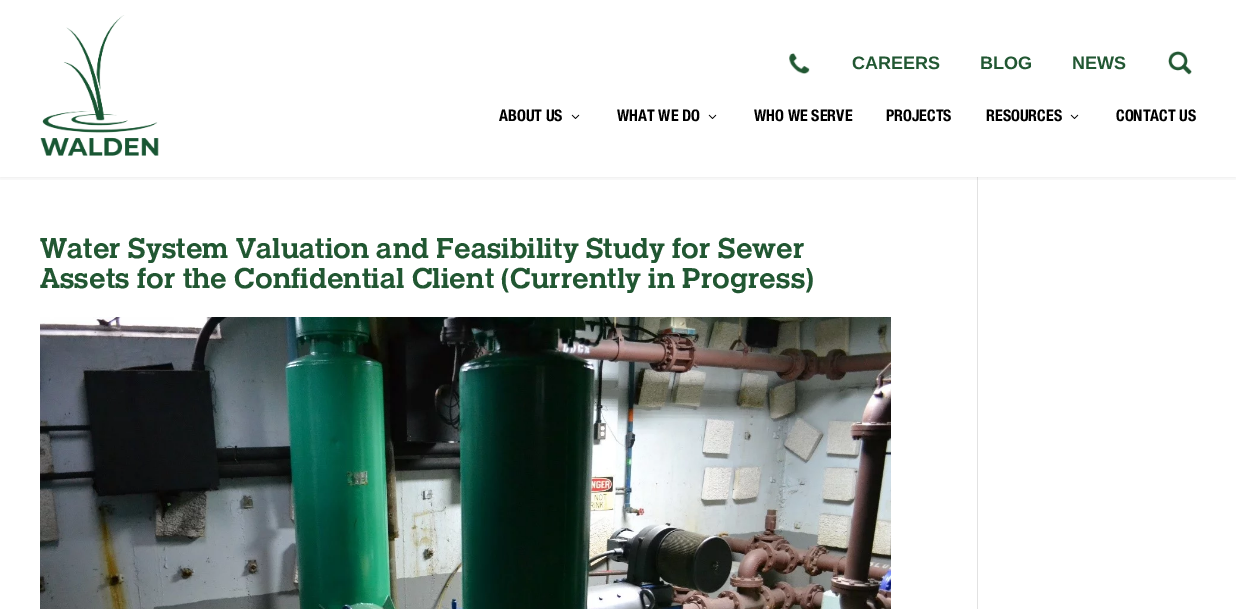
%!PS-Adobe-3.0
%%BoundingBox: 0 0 1236 609
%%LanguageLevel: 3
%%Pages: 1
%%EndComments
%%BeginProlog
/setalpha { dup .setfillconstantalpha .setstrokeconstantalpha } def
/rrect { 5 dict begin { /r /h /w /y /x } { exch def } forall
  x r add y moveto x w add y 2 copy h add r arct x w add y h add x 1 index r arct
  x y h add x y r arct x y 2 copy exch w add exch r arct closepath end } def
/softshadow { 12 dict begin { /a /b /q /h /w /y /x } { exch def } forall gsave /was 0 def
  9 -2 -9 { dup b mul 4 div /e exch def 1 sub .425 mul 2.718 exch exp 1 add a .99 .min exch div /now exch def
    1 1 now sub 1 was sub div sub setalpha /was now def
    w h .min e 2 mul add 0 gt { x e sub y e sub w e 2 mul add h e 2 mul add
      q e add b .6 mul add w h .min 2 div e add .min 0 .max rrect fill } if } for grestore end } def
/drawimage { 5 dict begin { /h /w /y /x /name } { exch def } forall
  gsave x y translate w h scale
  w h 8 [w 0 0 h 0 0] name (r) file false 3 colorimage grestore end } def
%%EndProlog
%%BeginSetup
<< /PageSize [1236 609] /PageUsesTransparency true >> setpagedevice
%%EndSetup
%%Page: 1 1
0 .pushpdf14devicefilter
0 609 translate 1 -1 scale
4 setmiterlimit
1 setgray
0 0 1236 609 rectfill
0.886 setgray
977 177 1 432 rectfill
gsave
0 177 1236 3 rectclip
0 setgray
0 0 1236 177 0 3.5 0.1 softshadow
grestore
(images/1.raw) 789 53 21 21 drawimage
(images/2.raw) 40 15 119 141 drawimage
(images/3.raw) 1168 51 24 24 drawimage
(images/4.raw) 571 114 9 5 drawimage
(images/4.raw) 708 114 9 5 drawimage
(images/4.raw) 1070 114 9 5 drawimage
(images/5.raw) 40 317 851 292 drawimage
/LiberationSans-Bold [18 0 0 -18 0 0] selectfont
0.129 0.341 0.196 setrgbcolor
852 69 moveto (CAREERS) show
980 69 moveto (BLOG) show
1072 69 moveto (NEWS) show
/HelveticaNeue-Bold [16 0 0 -16 0 0] selectfont
0 setgray
499 121 moveto (ABOUT US) show
617 121 moveto (WHAT WE DO) show
754 121 moveto (WHO WE SERVE) show
886 121 moveto (PROJECTS) show
986 121 moveto (RESOURCES) show
1116 121 moveto (CONTACT US) show
/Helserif-Medium [30 0 0 -30 0 0] selectfont
0.129 0.341 0.196 setrgbcolor
40 258 moveto (Water System Valuation and Feasibility Study for Sewer) show
40 288 moveto (Assets for the Confidential Client \(Currently in Progress\)) show
.poppdf14devicefilter showpage
%%EOF
